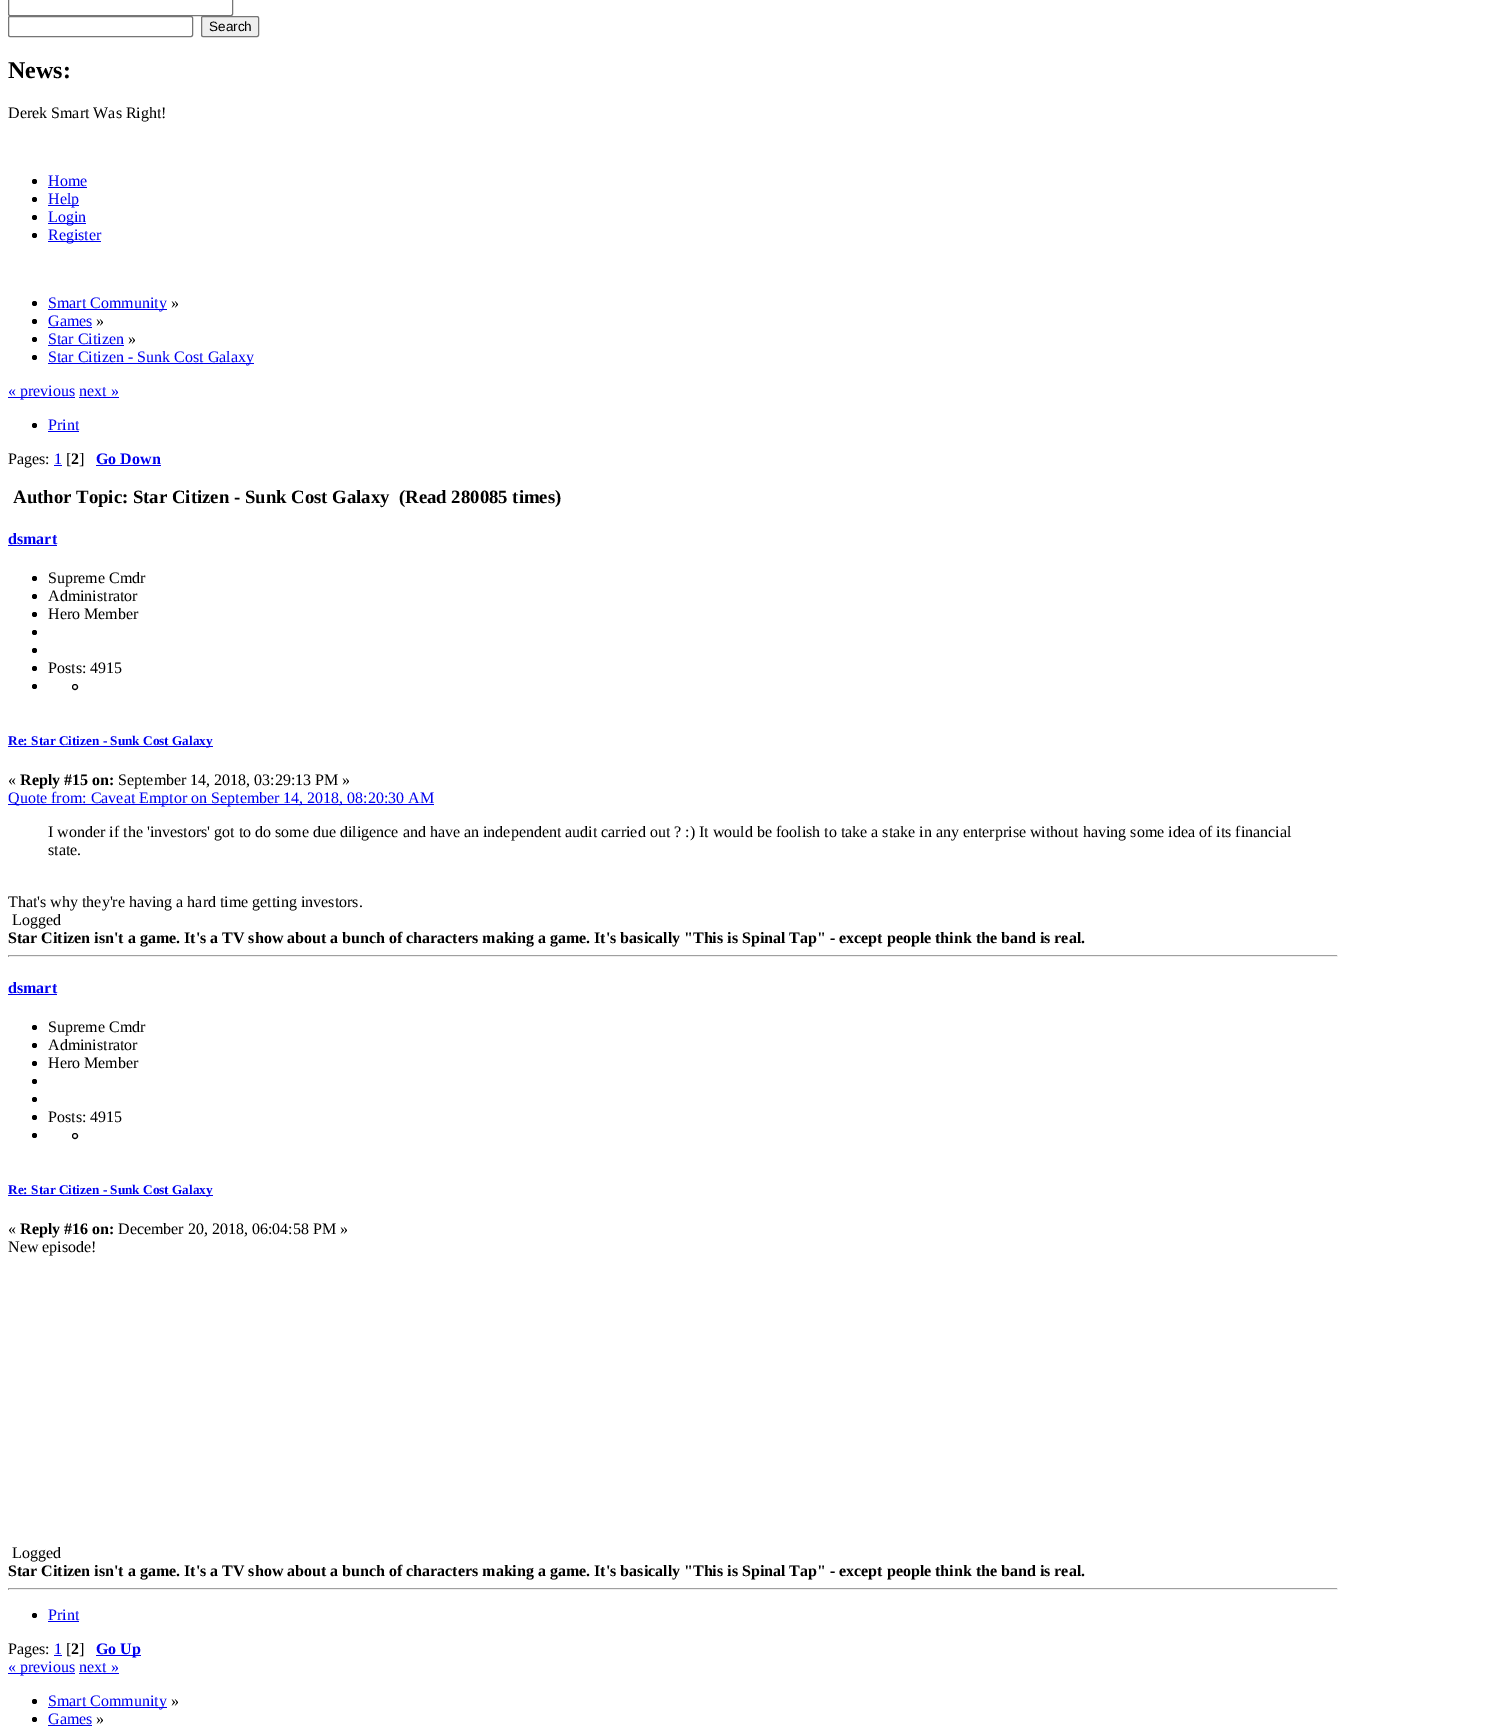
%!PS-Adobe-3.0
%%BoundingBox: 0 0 1494 1728
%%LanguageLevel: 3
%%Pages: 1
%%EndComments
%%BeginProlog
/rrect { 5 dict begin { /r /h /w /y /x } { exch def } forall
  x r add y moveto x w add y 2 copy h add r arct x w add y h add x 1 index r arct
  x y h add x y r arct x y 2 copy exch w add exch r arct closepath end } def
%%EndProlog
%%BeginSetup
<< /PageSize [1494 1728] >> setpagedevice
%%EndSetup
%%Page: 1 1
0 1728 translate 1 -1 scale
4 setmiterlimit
1 setgray
0 0 1494 1728 rectfill
0.463 setgray
8.5 -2.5 224 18 1.5 rrect stroke
8.5 16.5 184 20 1.5 rrect stroke
0.937 setgray
201.5 16.5 57 20 1.5 rrect gsave fill grestore
0.463 setgray
stroke
0 setgray
newpath 34.5 181.5 2.5 0 360 arc closepath fill
0 0 0.933 setrgbcolor
48 187 39 1 rectfill
0 setgray
newpath 34.5 199.5 2.5 0 360 arc closepath fill
0 0 0.933 setrgbcolor
48 205 31 1 rectfill
0 setgray
newpath 34.5 217.5 2.5 0 360 arc closepath fill
0 0 0.933 setrgbcolor
48 223 38 1 rectfill
0 setgray
newpath 34.5 235.5 2.5 0 360 arc closepath fill
0 0 0.933 setrgbcolor
48 241 53 1 rectfill
0 setgray
newpath 34.5 303.5 2.5 0 360 arc closepath fill
0 0 0.933 setrgbcolor
48 309 119 1 rectfill
0 setgray
newpath 34.5 321.5 2.5 0 360 arc closepath fill
0 0 0.933 setrgbcolor
48 327 44 1 rectfill
0 setgray
newpath 34.5 339.5 2.5 0 360 arc closepath fill
0 0 0.933 setrgbcolor
48 345 76 1 rectfill
0 setgray
newpath 34.5 357.5 2.5 0 360 arc closepath fill
0 0 0.933 setrgbcolor
48 363 206 1 rectfill
8 397 67 1 rectfill
79 397 40 1 rectfill
0 setgray
newpath 34.5 425.5 2.5 0 360 arc closepath fill
0 0 0.933 setrgbcolor
48 431 31 1 rectfill
54 465 8 1 rectfill
96 465 65 1 rectfill
8 545 49 1 rectfill
0 setgray
newpath 34.5 578.5 2.5 0 360 arc closepath fill
newpath 34.5 596.5 2.5 0 360 arc closepath fill
newpath 34.5 614.5 2.5 0 360 arc closepath fill
newpath 34.5 632.5 2.5 0 360 arc closepath fill
newpath 34.5 650.5 2.5 0 360 arc closepath fill
newpath 34.5 668.5 2.5 0 360 arc closepath fill
newpath 34.5 686.5 2.5 0 360 arc closepath fill
newpath 75 687 2.5 0 360 arc closepath stroke
0 0 0.933 setrgbcolor
8 746 205 1 rectfill
8 804 426 1 rectfill
0.624 setgray
8 955 1330 1 rectfill
0.933 setgray
1337 955 1 2 rectfill
8 956 1330 1 rectfill
0.624 setgray
8 955 1 2 rectfill
0 0 0.933 setrgbcolor
8 994 49 1 rectfill
0 setgray
newpath 34.5 1027.5 2.5 0 360 arc closepath fill
newpath 34.5 1045.5 2.5 0 360 arc closepath fill
newpath 34.5 1063.5 2.5 0 360 arc closepath fill
newpath 34.5 1081.5 2.5 0 360 arc closepath fill
newpath 34.5 1099.5 2.5 0 360 arc closepath fill
newpath 34.5 1117.5 2.5 0 360 arc closepath fill
newpath 34.5 1135.5 2.5 0 360 arc closepath fill
newpath 75 1136 2.5 0 360 arc closepath stroke
0 0 0.933 setrgbcolor
8 1195 205 1 rectfill
0.624 setgray
8 1588 1330 1 rectfill
0.933 setgray
1337 1588 1 2 rectfill
8 1589 1330 1 rectfill
0.624 setgray
8 1588 1 2 rectfill
0 setgray
newpath 34.5 1615.5 2.5 0 360 arc closepath fill
0 0 0.933 setrgbcolor
48 1621 31 1 rectfill
54 1655 8 1 rectfill
96 1655 45 1 rectfill
8 1673 67 1 rectfill
79 1673 40 1 rectfill
0 setgray
newpath 34.5 1701.5 2.5 0 360 arc closepath fill
0 0 0.933 setrgbcolor
48 1707 119 1 rectfill
0 setgray
newpath 34.5 1719.5 2.5 0 360 arc closepath fill
0 0 0.933 setrgbcolor
48 1725 44 1 rectfill
/LiberationSans-Regular [13.5 0 0 -13.5 0 0] selectfont
0 setgray
209 31 moveto (Search) show
/LiberationSerif-Bold [24 0 0 -24 0 0] selectfont
8 78 moveto (News:) show
/LiberationSerif-Regular [16 0 0 -16 0 0] selectfont
8 118 moveto (Derek Smart Was Right!) show
0 0 0.933 setrgbcolor
48 186 moveto (Home) show
48 204 moveto (Help) show
48 222 moveto (Login) show
48 240 moveto (Register) show
48 308 moveto (Smart Community) show
0 setgray
171 308 moveto (») show
0 0 0.933 setrgbcolor
48 326 moveto (Games) show
0 setgray
96 326 moveto (») show
0 0 0.933 setrgbcolor
48 344 moveto (Star Citizen) show
0 setgray
128 344 moveto (») show
0 0 0.933 setrgbcolor
48 362 moveto (Star Citizen - Sunk Cost Galaxy) show
8 396 moveto (« previous next ») show
48 430 moveto (Print) show
0 setgray
8 464 moveto (Pages:) show
0 0 0.933 setrgbcolor
54 464 moveto (1) show
0 setgray
66 464 moveto ([) show
/LiberationSerif-Bold [16 0 0 -16 0 0] selectfont
71 464 moveto (2) show
/LiberationSerif-Regular [16 0 0 -16 0 0] selectfont
79 464 moveto (]) show
/LiberationSerif-Bold [16 0 0 -16 0 0] selectfont
0 0 0.933 setrgbcolor
96 464 moveto (Go Down) show
/LiberationSerif-Bold [18.75 0 0 -18.75 0 0] selectfont
0 setgray
13 503 moveto (Author Topic: Star Citizen - Sunk Cost Galaxy  \(Read 280085 times\)) show
/LiberationSerif-Bold [16 0 0 -16 0 0] selectfont
0 0 0.933 setrgbcolor
8 544 moveto (dsmart) show
/LiberationSerif-Regular [16 0 0 -16 0 0] selectfont
0 setgray
48 583 moveto (Supreme Cmdr) show
48 601 moveto (Administrator) show
48 619 moveto (Hero Member) show
48 673 moveto (Posts: 4915) show
/LiberationSerif-Bold [13.25 0 0 -13.25 0 0] selectfont
0 0 0.933 setrgbcolor
8 745 moveto (Re: Star Citizen - Sunk Cost Galaxy) show
/LiberationSerif-Regular [16 0 0 -16 0 0] selectfont
0 setgray
8 785 moveto («) show
/LiberationSerif-Bold [16 0 0 -16 0 0] selectfont
20 785 moveto (Reply #15 on:) show
/LiberationSerif-Regular [16 0 0 -16 0 0] selectfont
118 785 moveto (September 14, 2018, 03:29:13 PM ») show
0 0 0.933 setrgbcolor
8 803 moveto (Quote from: Caveat Emptor on September 14, 2018, 08:20:30 AM) show
0 setgray
48 837 moveto (I wonder if the 'investors' got to do some due diligence and have an independent audit carried out ? :\) It would be foolish to take a stake in any enterprise without having some idea of its financial) show
48 855 moveto (state.) show
8 907 moveto (That's why they're having a hard time getting investors.) show
12 925 moveto (Logged) show
/LiberationSerif-Bold [16 0 0 -16 0 0] selectfont
8 943 moveto (Star Citizen isn't a game. It's a TV show about a bunch of characters making a game. It's basically "This is Spinal Tap" - except people think the band is real.) show
0 0 0.933 setrgbcolor
8 993 moveto (dsmart) show
/LiberationSerif-Regular [16 0 0 -16 0 0] selectfont
0 setgray
48 1032 moveto (Supreme Cmdr) show
48 1050 moveto (Administrator) show
48 1068 moveto (Hero Member) show
48 1122 moveto (Posts: 4915) show
/LiberationSerif-Bold [13.25 0 0 -13.25 0 0] selectfont
0 0 0.933 setrgbcolor
8 1194 moveto (Re: Star Citizen - Sunk Cost Galaxy) show
/LiberationSerif-Regular [16 0 0 -16 0 0] selectfont
0 setgray
8 1234 moveto («) show
/LiberationSerif-Bold [16 0 0 -16 0 0] selectfont
20 1234 moveto (Reply #16 on:) show
/LiberationSerif-Regular [16 0 0 -16 0 0] selectfont
118 1234 moveto (December 20, 2018, 06:04:58 PM ») show
8 1252 moveto (New episode!) show
12 1558 moveto (Logged) show
/LiberationSerif-Bold [16 0 0 -16 0 0] selectfont
8 1576 moveto (Star Citizen isn't a game. It's a TV show about a bunch of characters making a game. It's basically "This is Spinal Tap" - except people think the band is real.) show
/LiberationSerif-Regular [16 0 0 -16 0 0] selectfont
0 0 0.933 setrgbcolor
48 1620 moveto (Print) show
0 setgray
8 1654 moveto (Pages:) show
0 0 0.933 setrgbcolor
54 1654 moveto (1) show
0 setgray
66 1654 moveto ([) show
/LiberationSerif-Bold [16 0 0 -16 0 0] selectfont
71 1654 moveto (2) show
/LiberationSerif-Regular [16 0 0 -16 0 0] selectfont
79 1654 moveto (]) show
/LiberationSerif-Bold [16 0 0 -16 0 0] selectfont
0 0 0.933 setrgbcolor
96 1654 moveto (Go Up) show
/LiberationSerif-Regular [16 0 0 -16 0 0] selectfont
8 1672 moveto (« previous next ») show
48 1706 moveto (Smart Community) show
0 setgray
171 1706 moveto (») show
0 0 0.933 setrgbcolor
48 1724 moveto (Games) show
0 setgray
96 1724 moveto (») show
showpage
%%EOF
